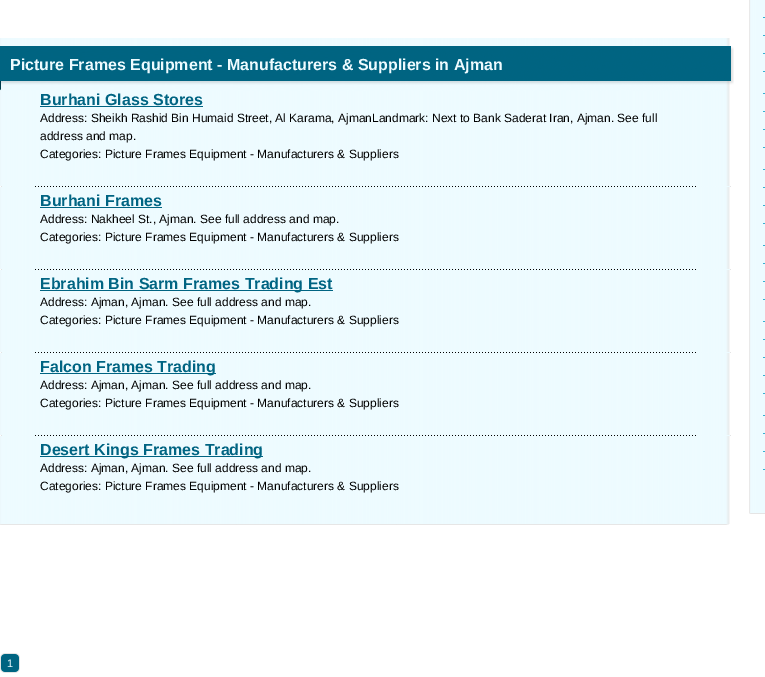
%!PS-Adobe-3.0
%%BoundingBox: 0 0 765 677
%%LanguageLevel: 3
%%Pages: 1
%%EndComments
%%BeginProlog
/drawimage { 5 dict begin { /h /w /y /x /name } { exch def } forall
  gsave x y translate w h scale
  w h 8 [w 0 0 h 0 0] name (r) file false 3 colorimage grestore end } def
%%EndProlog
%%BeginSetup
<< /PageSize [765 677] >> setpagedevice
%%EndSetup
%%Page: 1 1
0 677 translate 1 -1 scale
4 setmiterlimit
1 setgray
0 0 765 677 rectfill
(images/1.raw) 0 38 730 486 drawimage
(images/2.raw) 0 46 734 45 drawimage
0 0.392 0.51 setrgbcolor
40 106 163 1 rectfill
(images/3.raw) 0 186 731 1 drawimage
40 207 122 1 rectfill
(images/3.raw) 0 269 731 1 drawimage
40 290 293 1 rectfill
(images/3.raw) 0 352 731 1 drawimage
40 373 176 1 rectfill
(images/3.raw) 0 435 731 1 drawimage
40 456 223 1 rectfill
(images/4.raw) 0 524 730 1 drawimage
(images/5.raw) 0 653 20 20 drawimage
(images/6.raw) 749 0 16 513 drawimage
0.208 0.69 0.824 setrgbcolor
763 17 2 1 rectfill
763 35 2 1 rectfill
763 53 2 1 rectfill
763 71 2 1 rectfill
763 93 2 1 rectfill
763 111 2 1 rectfill
763 129 2 1 rectfill
763 147 2 1 rectfill
763 169 2 1 rectfill
763 187 2 1 rectfill
763 205 2 1 rectfill
763 223 2 1 rectfill
763 245 2 1 rectfill
763 263 2 1 rectfill
763 281 2 1 rectfill
763 299 2 1 rectfill
763 321 2 1 rectfill
763 339 2 1 rectfill
763 357 2 1 rectfill
763 375 2 1 rectfill
763 393 2 1 rectfill
763 415 2 1 rectfill
763 433 2 1 rectfill
763 451 2 1 rectfill
763 469 2 1 rectfill
(images/7.raw) 749 513 16 1 drawimage
/LiberationSans-Bold [16 0 0 -16 0 0] selectfont
0.933 0.984 1 setrgbcolor
10 70 moveto (Picture Frames Equipment - Manufacturers & Suppliers in Ajman) show
0 0.392 0.51 setrgbcolor
40 105 moveto (Burhani Glass Stores) show
/LiberationSans-Regular [12 0 0 -12 0 0] selectfont
0 setgray
40 122 moveto (Address: Sheikh Rashid Bin Humaid Street, Al Karama, AjmanLandmark: Next to Bank Saderat Iran, Ajman. See full) show
40 140 moveto (address and map.) show
40 158 moveto (Categories: Picture Frames Equipment - Manufacturers & Suppliers) show
/LiberationSans-Bold [16 0 0 -16 0 0] selectfont
0 0.392 0.51 setrgbcolor
40 206 moveto (Burhani Frames) show
/LiberationSans-Regular [12 0 0 -12 0 0] selectfont
0 setgray
40 223 moveto (Address: Nakheel St., Ajman. See full address and map.) show
40 241 moveto (Categories: Picture Frames Equipment - Manufacturers & Suppliers) show
/LiberationSans-Bold [16 0 0 -16 0 0] selectfont
0 0.392 0.51 setrgbcolor
40 289 moveto (Ebrahim Bin Sarm Frames Trading Est) show
/LiberationSans-Regular [12 0 0 -12 0 0] selectfont
0 setgray
40 306 moveto (Address: Ajman, Ajman. See full address and map.) show
40 324 moveto (Categories: Picture Frames Equipment - Manufacturers & Suppliers) show
/LiberationSans-Bold [16 0 0 -16 0 0] selectfont
0 0.392 0.51 setrgbcolor
40 372 moveto (Falcon Frames Trading) show
/LiberationSans-Regular [12 0 0 -12 0 0] selectfont
0 setgray
40 389 moveto (Address: Ajman, Ajman. See full address and map.) show
40 407 moveto (Categories: Picture Frames Equipment - Manufacturers & Suppliers) show
/LiberationSans-Bold [16 0 0 -16 0 0] selectfont
0 0.392 0.51 setrgbcolor
40 455 moveto (Desert Kings Frames Trading) show
/LiberationSans-Regular [12 0 0 -12 0 0] selectfont
0 setgray
40 472 moveto (Address: Ajman, Ajman. See full address and map.) show
40 490 moveto (Categories: Picture Frames Equipment - Manufacturers & Suppliers) show
/LiberationSans-Regular [11 0 0 -11 0 0] selectfont
0.933 0.984 1 setrgbcolor
7 667 moveto (1) show
showpage
%%EOF
